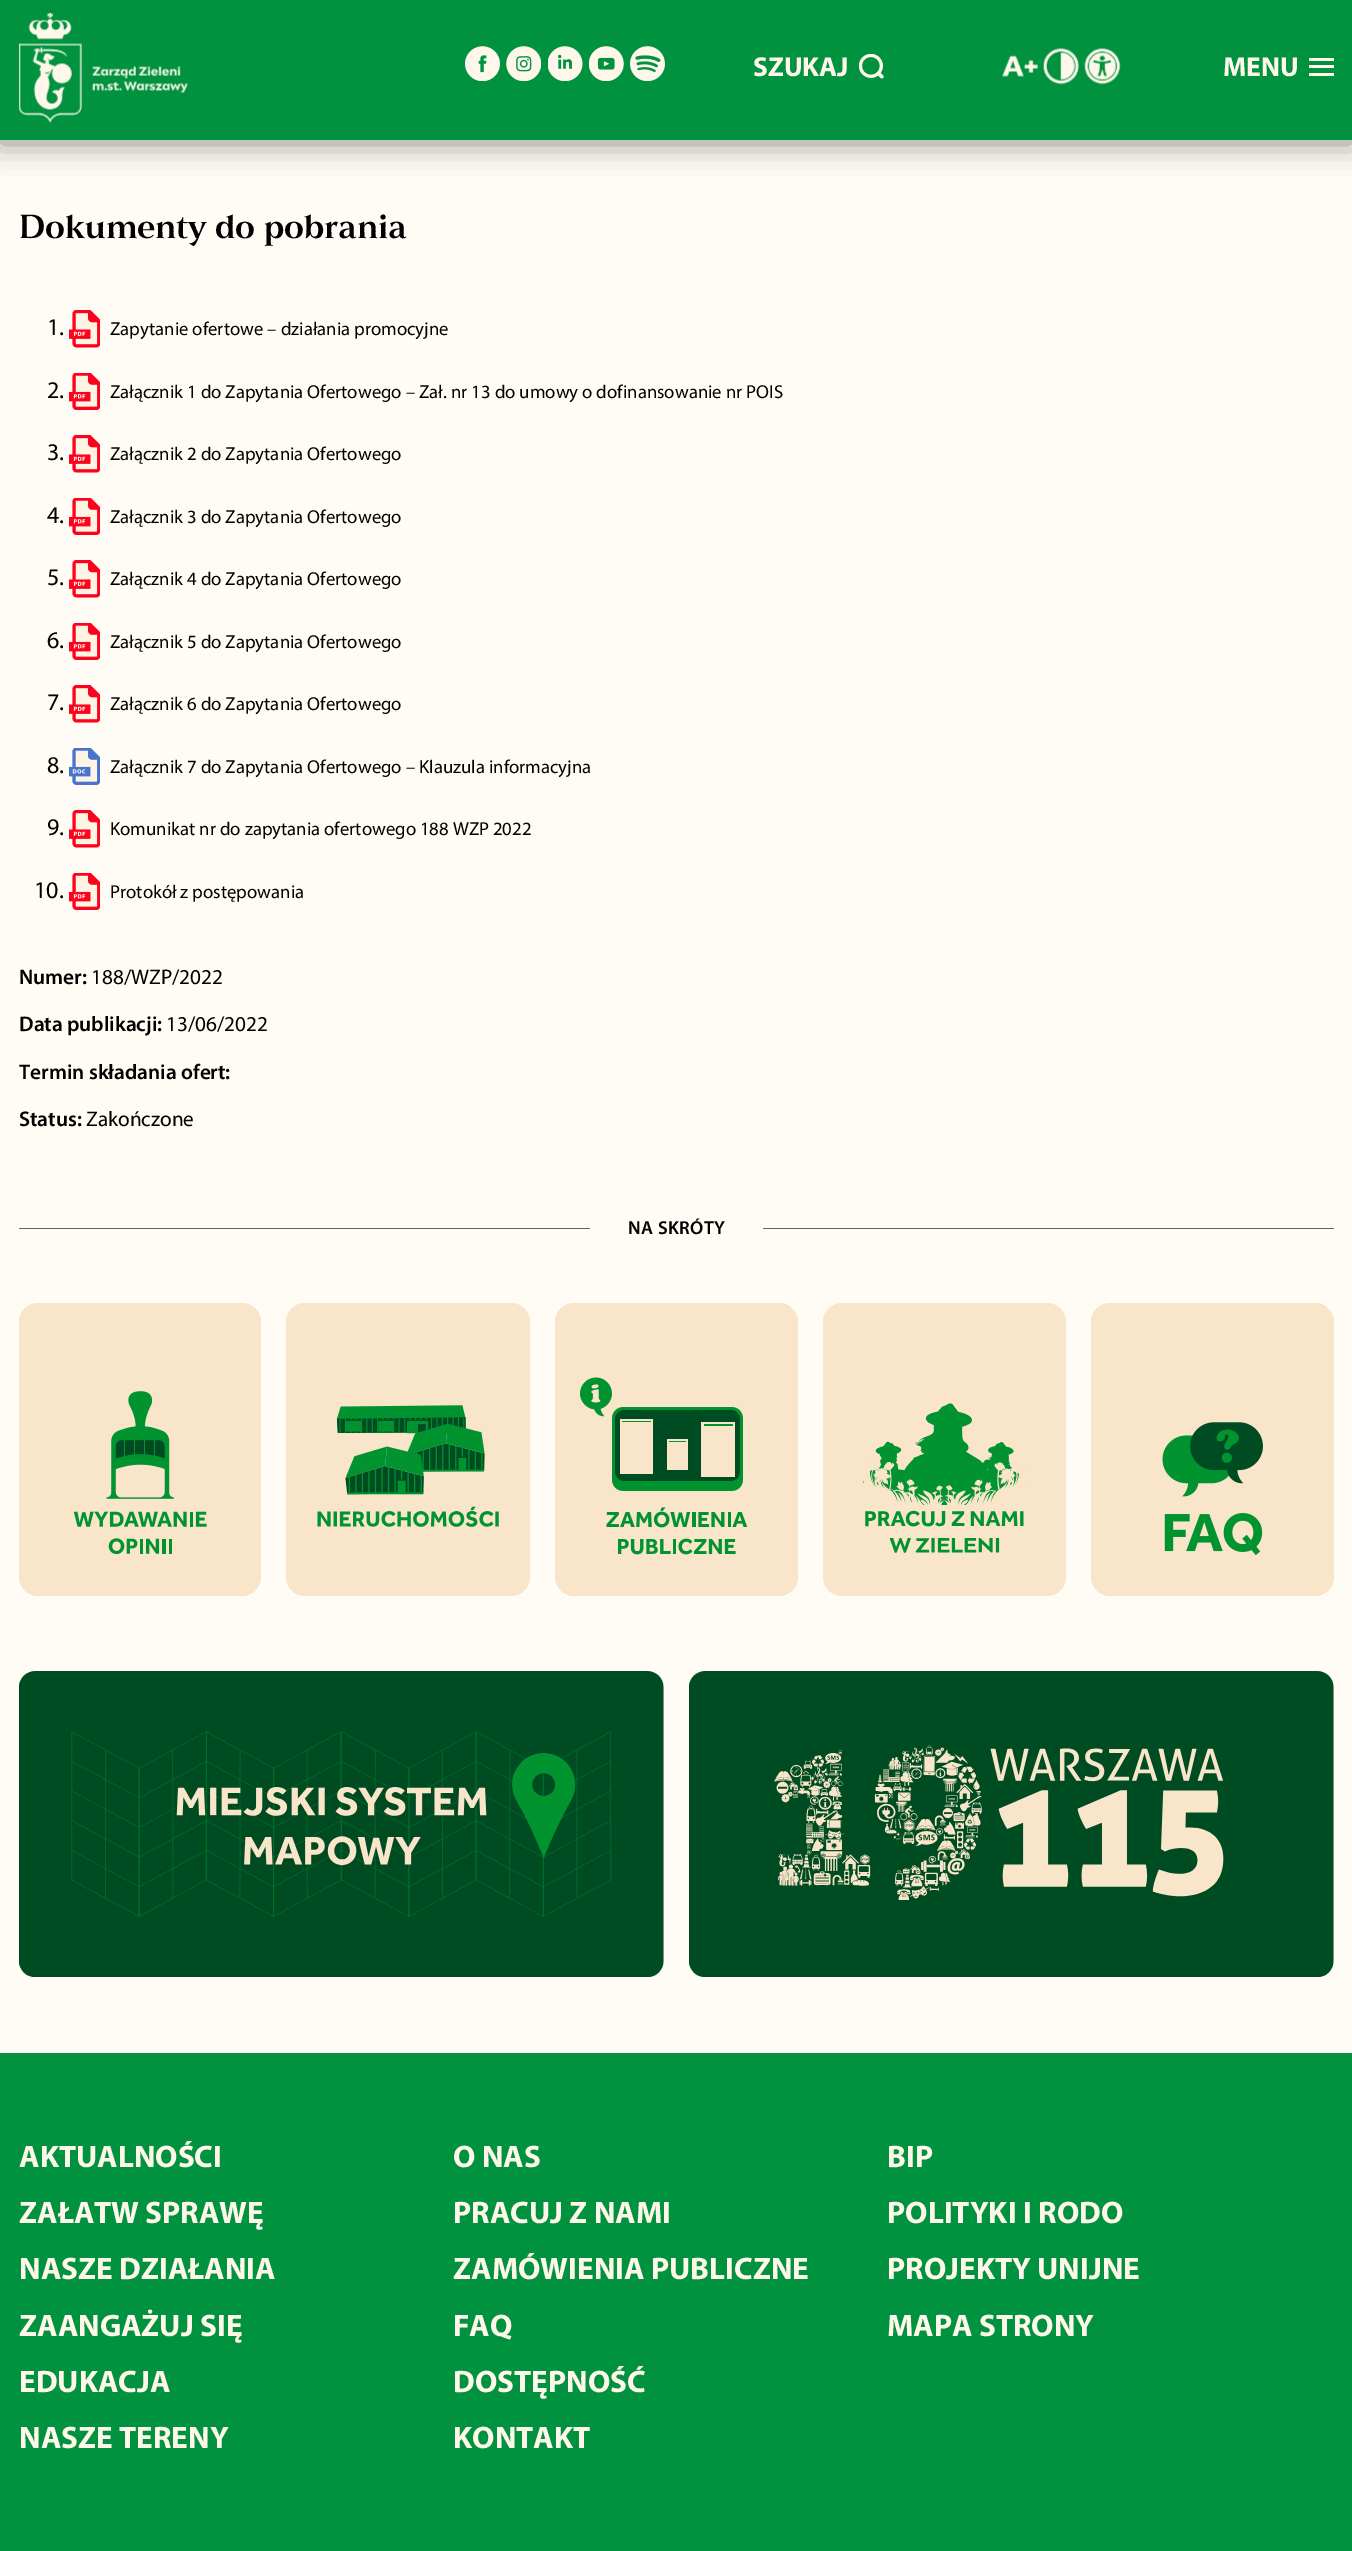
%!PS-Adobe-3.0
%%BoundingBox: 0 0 1352 2551
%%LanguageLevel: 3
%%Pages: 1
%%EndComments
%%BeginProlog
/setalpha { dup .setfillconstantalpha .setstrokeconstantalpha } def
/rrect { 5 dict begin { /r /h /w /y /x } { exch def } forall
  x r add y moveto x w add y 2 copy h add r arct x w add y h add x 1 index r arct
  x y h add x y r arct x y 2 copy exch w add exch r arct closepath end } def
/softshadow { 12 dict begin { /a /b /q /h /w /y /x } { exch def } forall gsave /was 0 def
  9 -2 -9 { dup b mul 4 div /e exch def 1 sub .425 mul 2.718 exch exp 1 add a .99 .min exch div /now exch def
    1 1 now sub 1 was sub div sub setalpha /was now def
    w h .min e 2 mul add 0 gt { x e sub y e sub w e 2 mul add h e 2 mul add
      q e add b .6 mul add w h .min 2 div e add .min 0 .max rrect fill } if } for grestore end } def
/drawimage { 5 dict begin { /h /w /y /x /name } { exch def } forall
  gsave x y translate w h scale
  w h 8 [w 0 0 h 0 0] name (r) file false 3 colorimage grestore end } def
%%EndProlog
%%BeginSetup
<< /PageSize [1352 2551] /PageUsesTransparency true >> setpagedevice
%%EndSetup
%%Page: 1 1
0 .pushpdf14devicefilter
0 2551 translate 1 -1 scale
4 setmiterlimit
1 0.984 0.961 setrgbcolor
0 0 1352 2551 rectfill
0 setgray
0 3 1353 140 0 15 0.46 softshadow
0 0.573 0.247 setrgbcolor
0 0 1352 140 rectfill
(images/1.raw) 19 13 169 110 drawimage
(images/2.raw) 465 46 35 35 drawimage
(images/3.raw) 506 46 35 35 drawimage
(images/4.raw) 548 46 35 35 drawimage
(images/5.raw) 589 46 35 35 drawimage
(images/6.raw) 630 46 35 35 drawimage
(images/7.raw) 859 54 25 25 drawimage
(images/8.raw) 1001 55 37 22 drawimage
(images/9.raw) 1043 48 36 37 drawimage
(images/10.raw) 1084 48 37 37 drawimage
1 0.969 0.914 setrgbcolor
1309 58 25 3 rectfill
1309 65 25 3 rectfill
1309 73 25 3 rectfill
(images/11.raw) 69 310 31 38 drawimage
(images/12.raw) 69 373 31 37 drawimage
(images/11.raw) 69 435 31 38 drawimage
(images/12.raw) 69 498 31 37 drawimage
(images/11.raw) 69 560 31 38 drawimage
(images/12.raw) 69 623 31 37 drawimage
(images/11.raw) 69 685 31 38 drawimage
(images/13.raw) 69 748 31 37 drawimage
(images/11.raw) 69 810 31 38 drawimage
(images/12.raw) 69 873 31 37 drawimage
0.4 0.388 0.365 setrgbcolor
19 1228 571 1 rectfill
763 1228 571 1 rectfill
0.976 0.898 0.792 setrgbcolor
19 1303 242 293 19 rrect fill
(images/14.raw) 73 1391 134 164 drawimage
286 1303 244 293 19 rrect fill
(images/15.raw) 317 1405 182 122 drawimage
555 1303 243 293 19 rrect fill
(images/16.raw) 580 1377 168 178 drawimage
823 1303 243 293 19 rrect fill
(images/17.raw) 863 1403 162 150 drawimage
1091 1303 243 293 19 rrect fill
(images/18.raw) 1162 1422 101 134 drawimage
(images/19.raw) 19 1671 645 306 drawimage
(images/20.raw) 689 1671 645 306 drawimage
0 0.573 0.247 setrgbcolor
0 2053 1352 498 rectfill
/Myriad-Bold [27.5 0 0 -27.5 0 0] selectfont
1 0.969 0.914 setrgbcolor
753 76 moveto (SZUKAJ) show
1223 76 moveto (MENU) show
/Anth-Bold [33.75 0 0 -33.75 0 0] selectfont
0 setgray
19 238 moveto (Dokumenty do pobrania) show
/Myriad-Regular [24 0 0 -24 0 0] selectfont
47 335 moveto (1.) show
/Myriad-Regular [18.75 0 0 -18.75 0 0] selectfont
110 335 moveto (Zapytanie ofertowe – działania promocyjne) show
/Myriad-Regular [24 0 0 -24 0 0] selectfont
47 398 moveto (2.) show
/Myriad-Regular [18.75 0 0 -18.75 0 0] selectfont
110 398 moveto (Załącznik 1 do Zapytania Ofertowego – Zał. nr 13 do umowy o dofinansowanie nr POIS) show
/Myriad-Regular [24 0 0 -24 0 0] selectfont
47 460 moveto (3.) show
/Myriad-Regular [18.75 0 0 -18.75 0 0] selectfont
110 460 moveto (Załącznik 2 do Zapytania Ofertowego) show
/Myriad-Regular [24 0 0 -24 0 0] selectfont
47 523 moveto (4.) show
/Myriad-Regular [18.75 0 0 -18.75 0 0] selectfont
110 523 moveto (Załącznik 3 do Zapytania Ofertowego) show
/Myriad-Regular [24 0 0 -24 0 0] selectfont
47 585 moveto (5.) show
/Myriad-Regular [18.75 0 0 -18.75 0 0] selectfont
110 585 moveto (Załącznik 4 do Zapytania Ofertowego) show
/Myriad-Regular [24 0 0 -24 0 0] selectfont
47 648 moveto (6.) show
/Myriad-Regular [18.75 0 0 -18.75 0 0] selectfont
110 648 moveto (Załącznik 5 do Zapytania Ofertowego) show
/Myriad-Regular [24 0 0 -24 0 0] selectfont
47 710 moveto (7.) show
/Myriad-Regular [18.75 0 0 -18.75 0 0] selectfont
110 710 moveto (Załącznik 6 do Zapytania Ofertowego) show
/Myriad-Regular [24 0 0 -24 0 0] selectfont
47 773 moveto (8.) show
/Myriad-Regular [18.75 0 0 -18.75 0 0] selectfont
110 773 moveto (Załącznik 7 do Zapytania Ofertowego – Klauzula informacyjna) show
/Myriad-Regular [24 0 0 -24 0 0] selectfont
47 835 moveto (9.) show
/Myriad-Regular [18.75 0 0 -18.75 0 0] selectfont
110 835 moveto (Komunikat nr do zapytania ofertowego 188 WZP 2022) show
/Myriad-Regular [24 0 0 -24 0 0] selectfont
34 898 moveto (10.) show
/Myriad-Regular [18.75 0 0 -18.75 0 0] selectfont
110 898 moveto (Protokół z postępowania) show
/Myriad-SemiBold [21.25 0 0 -21.25 0 0] selectfont
19 984 moveto (Numer:) show
/Myriad-Regular [21.25 0 0 -21.25 0 0] selectfont
91 984 moveto (188/WZP/2022) show
/Myriad-SemiBold [21.25 0 0 -21.25 0 0] selectfont
19 1031 moveto (Data publikacji:) show
/Myriad-Regular [21.25 0 0 -21.25 0 0] selectfont
166 1031 moveto (13/06/2022) show
/Myriad-SemiBold [21.25 0 0 -21.25 0 0] selectfont
19 1079 moveto (Termin składania ofert:) show
19 1126 moveto (Status:) show
/Myriad-Regular [21.25 0 0 -21.25 0 0] selectfont
86 1126 moveto (Zakończone) show
/Myriad-SemiBold [18.75 0 0 -18.75 0 0] selectfont
628 1234 moveto 0.4 0 (NA SKRÓTY) ashow
/Myriad-Bold [31.25 0 0 -31.25 0 0] selectfont
1 0.969 0.914 setrgbcolor
19 2167 moveto (AKTUALNOŚCI) show
19 2223 moveto (ZAŁATW SPRAWĘ) show
19 2279 moveto (NASZE DZIAŁANIA) show
19 2336 moveto (ZAANGAŻUJ SIĘ) show
19 2392 moveto (EDUKACJA) show
19 2448 moveto (NASZE TERENY) show
453 2167 moveto (O NAS) show
453 2223 moveto (PRACUJ Z NAMI) show
453 2279 moveto (ZAMÓWIENIA PUBLICZNE) show
453 2336 moveto (FAQ) show
453 2392 moveto (DOSTĘPNOŚĆ) show
453 2448 moveto (KONTAKT) show
887 2167 moveto (BIP) show
887 2223 moveto (POLITYKI I RODO) show
887 2279 moveto (PROJEKTY UNIJNE) show
887 2336 moveto (MAPA STRONY) show
.poppdf14devicefilter showpage
%%EOF
